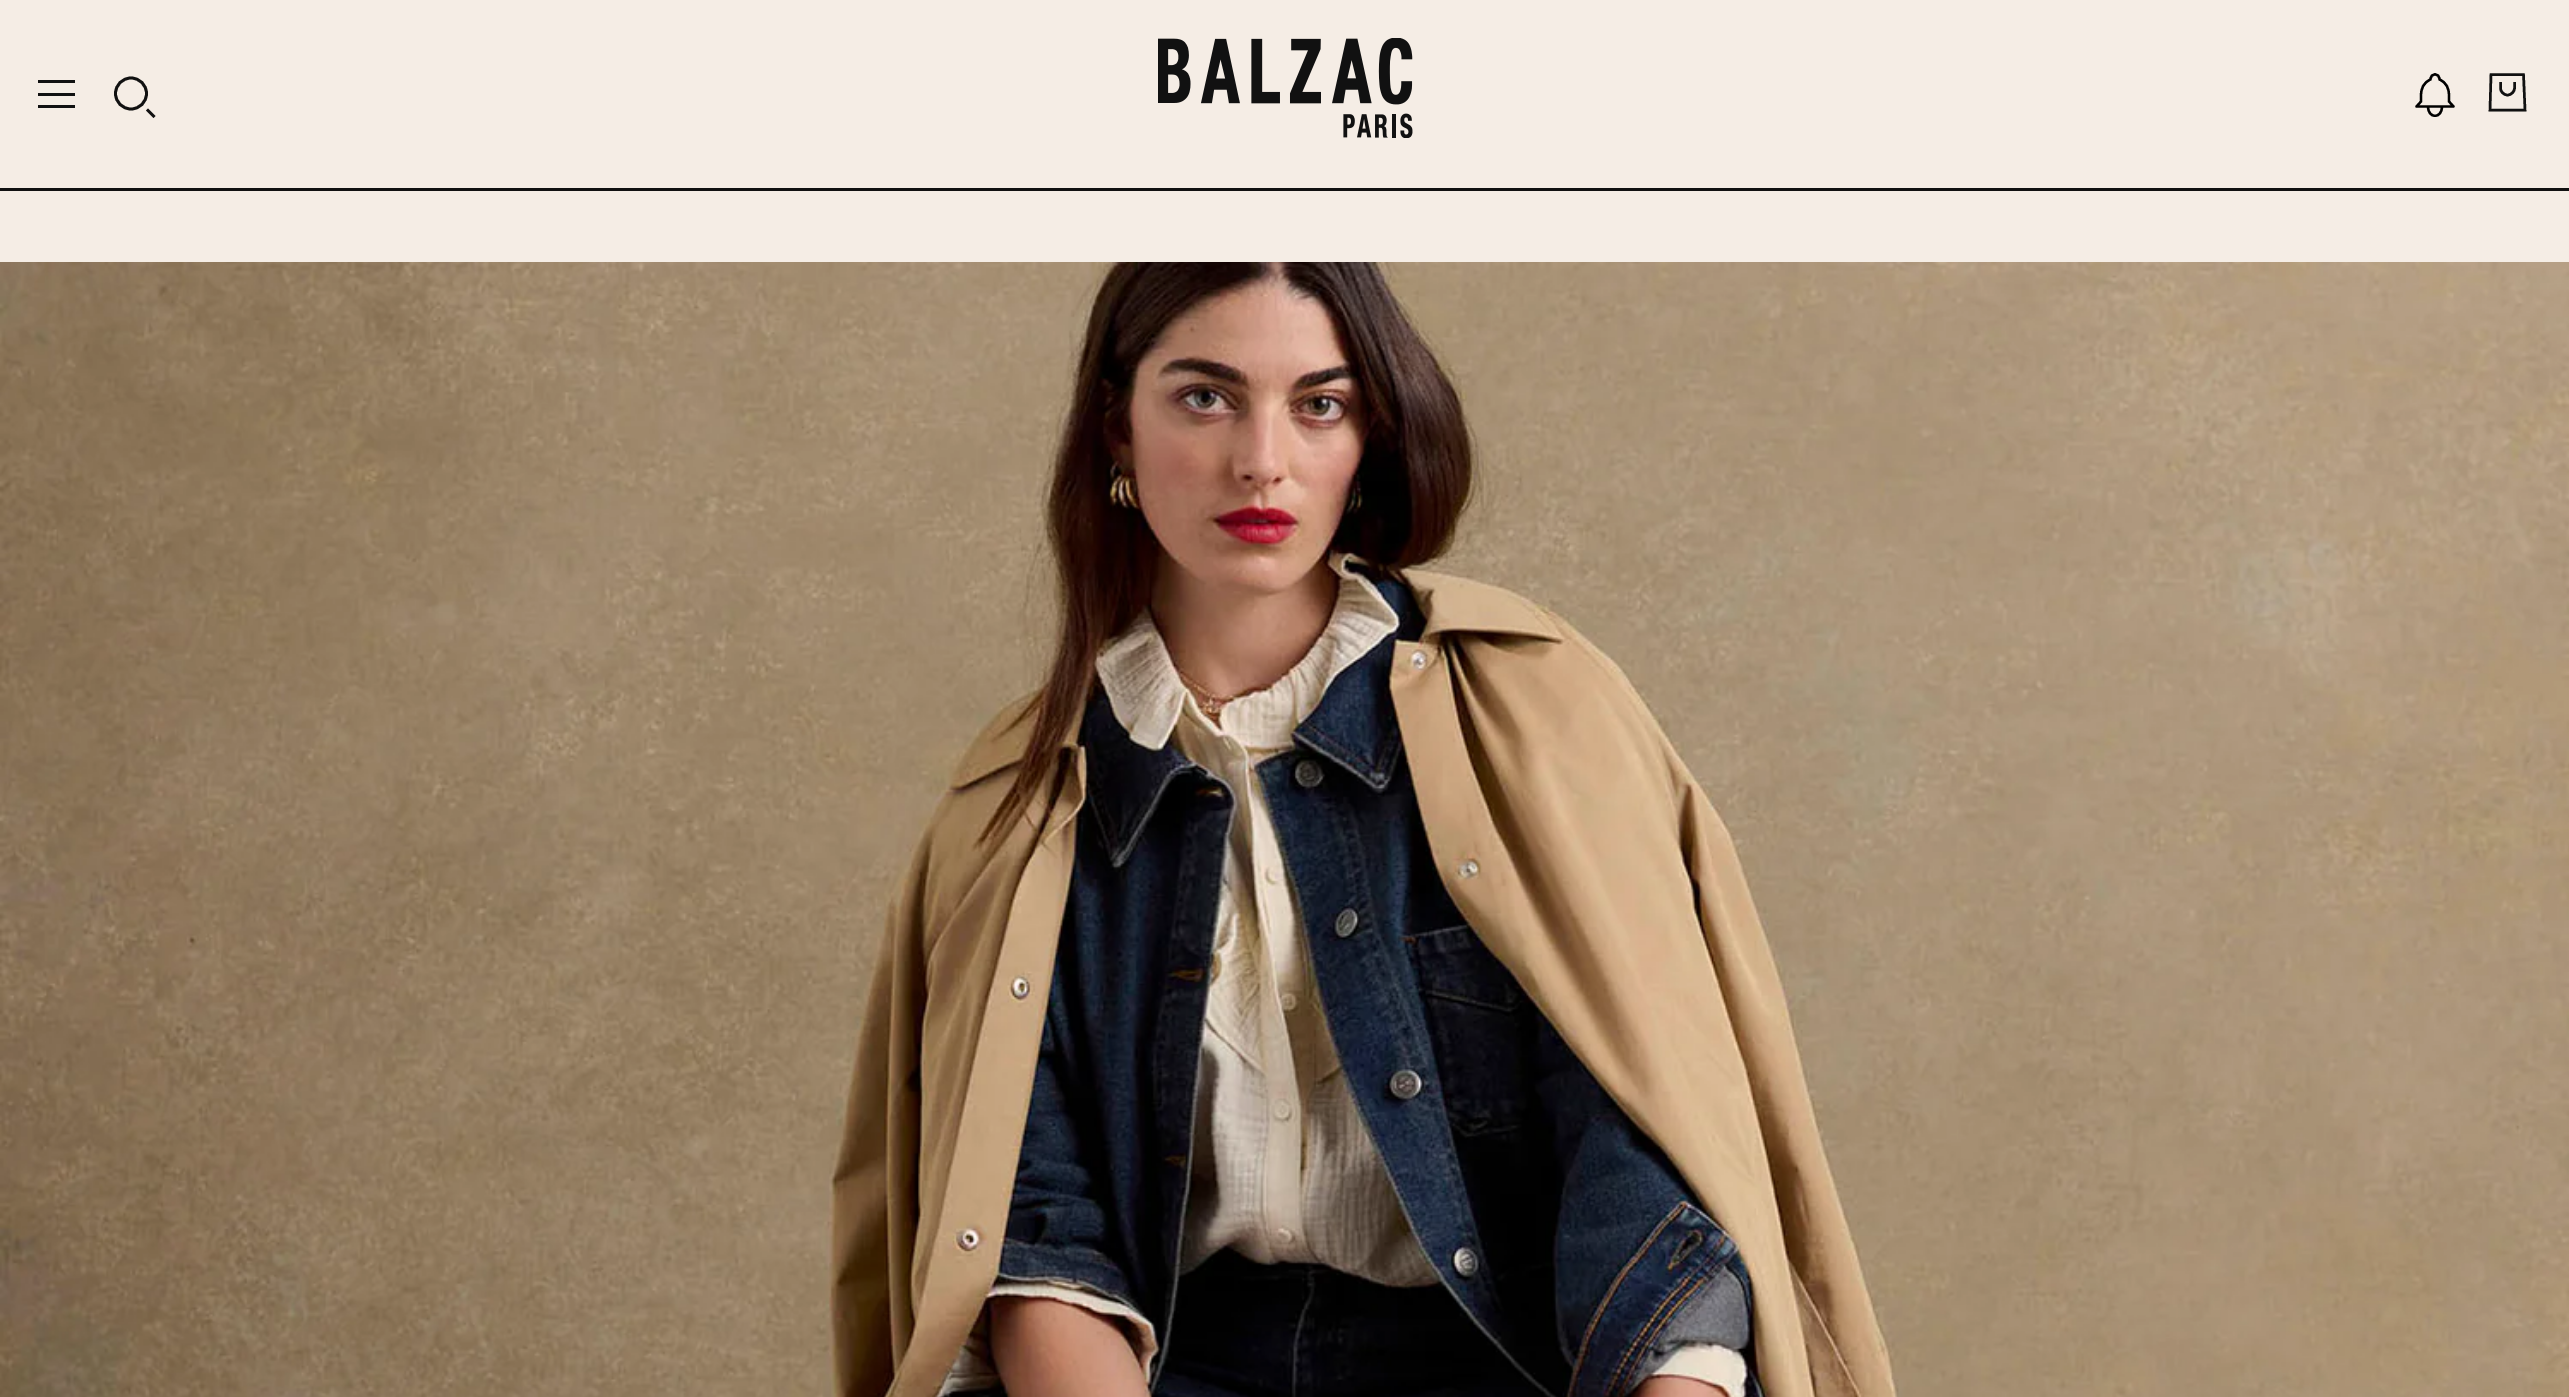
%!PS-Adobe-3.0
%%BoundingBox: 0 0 2569 1397
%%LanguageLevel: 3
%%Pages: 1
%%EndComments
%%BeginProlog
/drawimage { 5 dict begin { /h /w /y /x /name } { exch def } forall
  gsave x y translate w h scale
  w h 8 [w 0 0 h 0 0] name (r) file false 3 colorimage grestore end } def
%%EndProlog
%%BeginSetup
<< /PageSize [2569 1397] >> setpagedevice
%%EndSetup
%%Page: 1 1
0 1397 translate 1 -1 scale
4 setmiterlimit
0.961 0.929 0.898 setrgbcolor
0 0 2569 1397 rectfill
0.067 setgray
0 188 2569 3 rectfill
38 80 37 3 rectfill
38 93 37 3 rectfill
38 105 37 3 rectfill
2.8 setlinewidth
newpath 131 93.5 15.5 0 360 arc closepath stroke
newpath 147 109.5 moveto 154.5 117 lineto stroke
(images/1.raw) 1158 38 255 100 drawimage
0 setgray
2.3 setlinewidth
1 setlinecap
1 setlinejoin
newpath 2442 106.5 moveto 2453.5 106.5 lineto 2449 101.5 lineto 2449 95.5 lineto 2449 88.5 2446.5 82.5 2439.5 79.5 curveto 2439.5 72.5 2430.5 72.5 2430.5 79.5 curveto 2423.5 82.5 2421 88.5 2421 95.5 curveto 2421 101.5 lineto 2416.5 106.5 lineto 2428 106.5 lineto 2442 106.5 moveto 2442 119 2428 119 2428 106.5 curveto 2442 106.5 moveto 2428 106.5 lineto stroke
0.067 setgray
2.5 setlinewidth
0 setlinecap
0 setlinejoin
newpath 2525 110 moveto 2490 110 lineto 2491 74.5 lineto 2523.5 74.5 lineto closepath 2500.5 82 moveto 2500.5 88 lineto 2500.5 91.5 2503.5 95 2507.5 95 curveto 2511.5 95 2514.5 91.5 2514.5 88 curveto 2514.5 82 lineto stroke
(images/2.raw) 0 262 2569 1135 drawimage
showpage
%%EOF
